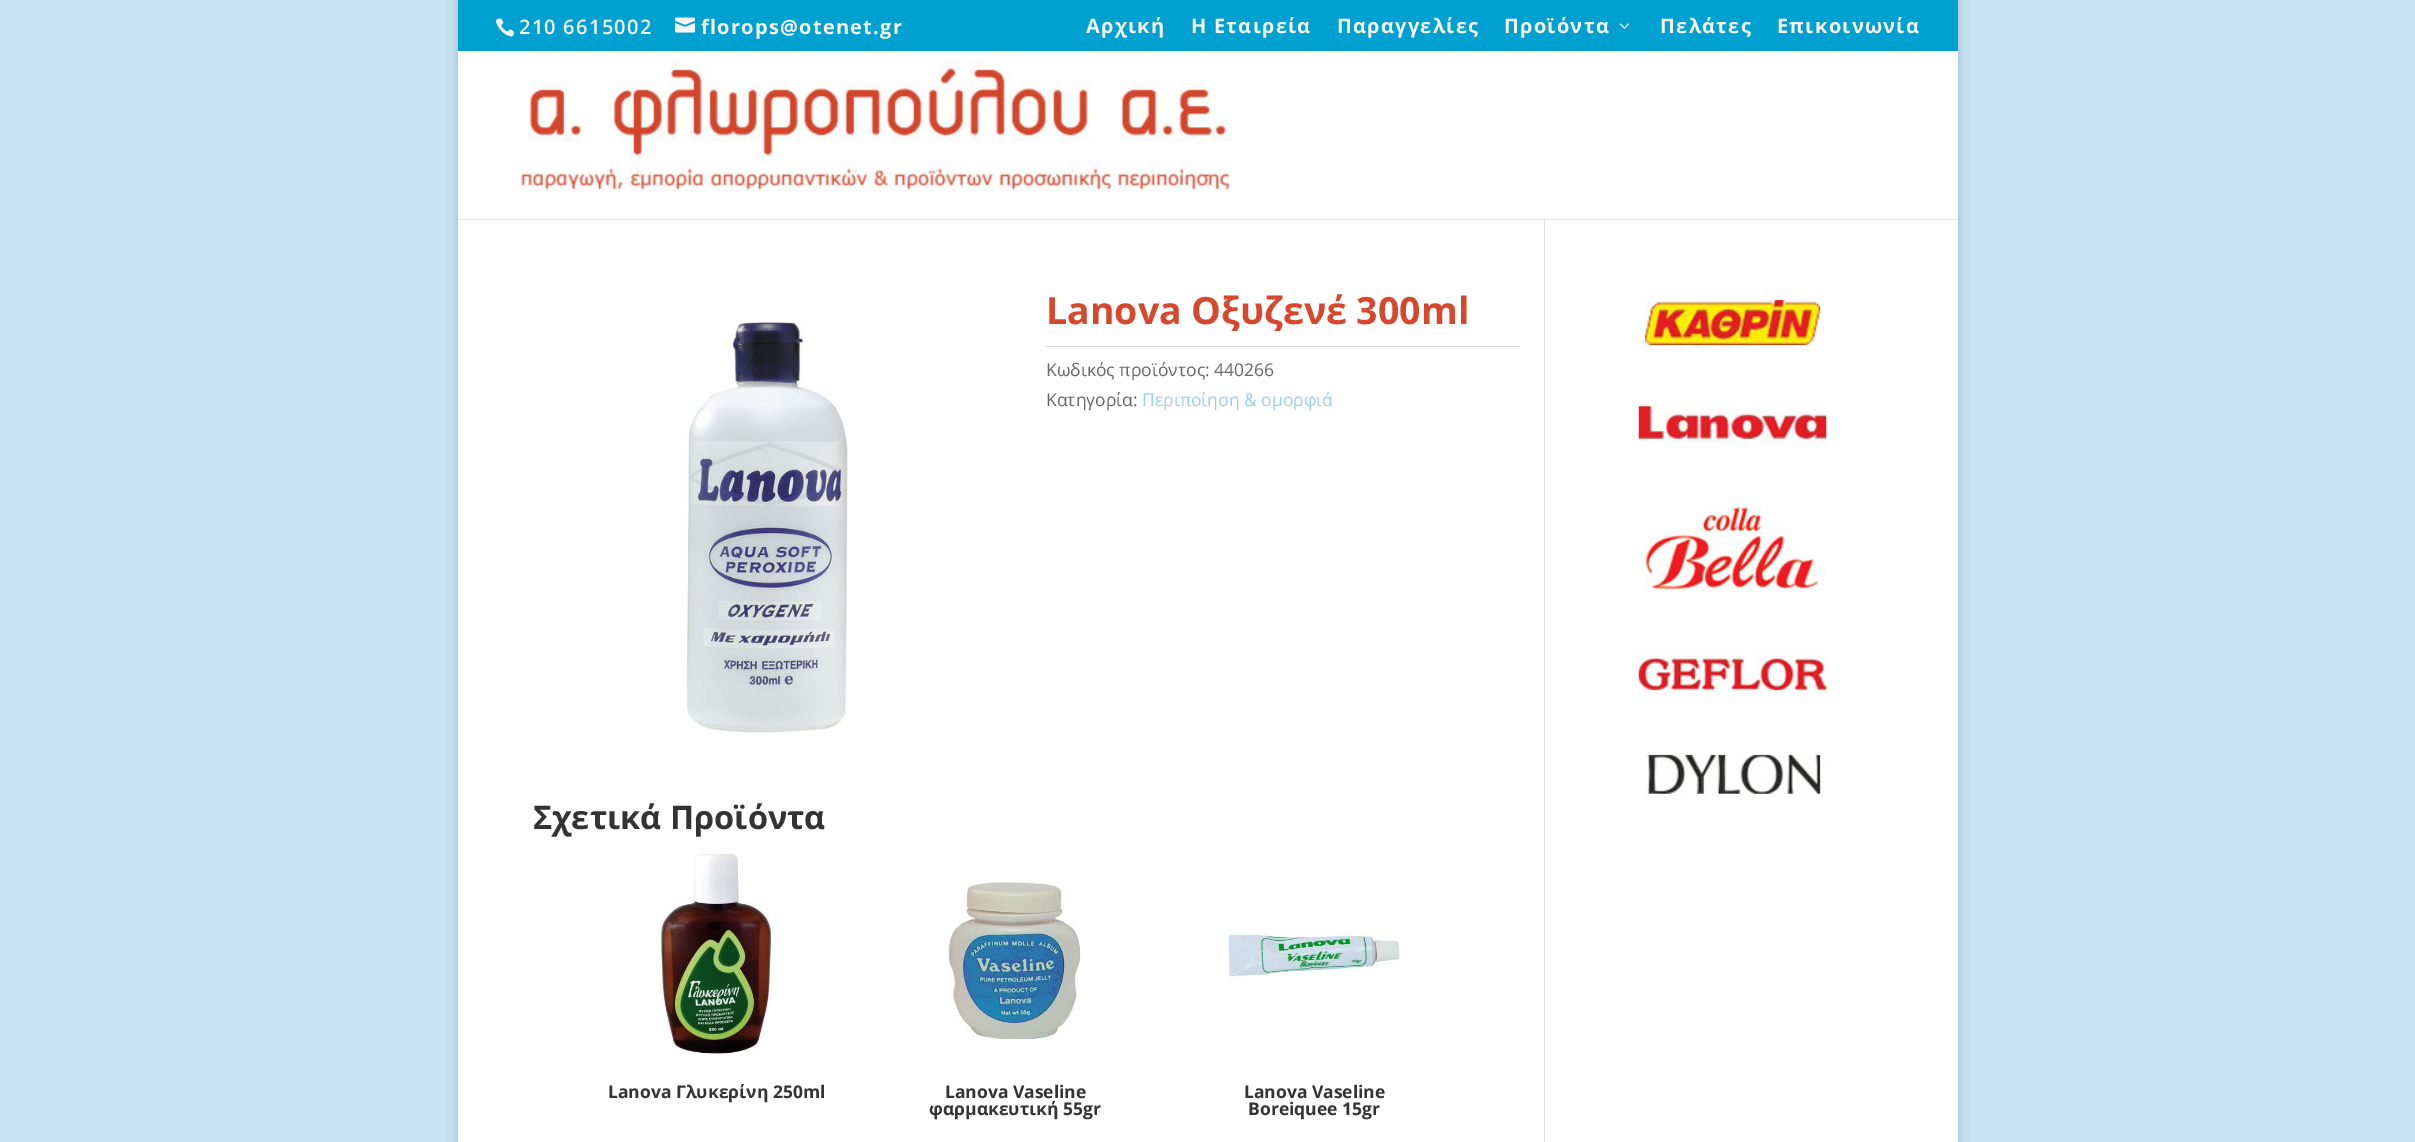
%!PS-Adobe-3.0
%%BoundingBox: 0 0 2415 1142
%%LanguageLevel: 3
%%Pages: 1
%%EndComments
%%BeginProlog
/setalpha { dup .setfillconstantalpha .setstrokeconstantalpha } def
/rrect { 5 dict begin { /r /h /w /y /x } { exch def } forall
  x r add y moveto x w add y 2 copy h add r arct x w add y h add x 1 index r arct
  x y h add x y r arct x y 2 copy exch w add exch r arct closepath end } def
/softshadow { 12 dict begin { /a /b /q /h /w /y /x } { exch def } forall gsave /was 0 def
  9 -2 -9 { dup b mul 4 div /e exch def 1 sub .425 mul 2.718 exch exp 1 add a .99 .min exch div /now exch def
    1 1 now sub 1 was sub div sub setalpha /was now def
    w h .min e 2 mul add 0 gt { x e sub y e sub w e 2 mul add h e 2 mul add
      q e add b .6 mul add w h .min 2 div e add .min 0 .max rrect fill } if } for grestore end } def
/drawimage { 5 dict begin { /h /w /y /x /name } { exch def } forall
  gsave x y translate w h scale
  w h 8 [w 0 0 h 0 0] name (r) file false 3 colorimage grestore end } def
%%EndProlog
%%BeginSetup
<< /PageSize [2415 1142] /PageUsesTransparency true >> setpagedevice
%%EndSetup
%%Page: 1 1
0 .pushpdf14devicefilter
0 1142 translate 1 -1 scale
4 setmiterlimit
0.784 0.894 0.957 setrgbcolor
0 0 2415 1142 rectfill
0 setgray
458 0 1500 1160 0 6 0.2 softshadow
0 0.627 0.82 setrgbcolor
458 0 1500 51 rectfill
(images/1.raw) 495 18 20 19 drawimage
(images/2.raw) 675 17 20 16 drawimage
(images/3.raw) 1619 23 10 6 drawimage
1 setgray
458 51 1500 1091 rectfill
0.886 setgray
1544 219 1 923 rectfill
0.1 setalpha
0 setgray
newpath 458 219 moveto 458 220 lineto 1958 220 lineto 1958 53 lineto 1958 219 lineto closepath fill
1 setalpha
(images/4.raw) 520 61 710 131 drawimage
(images/5.raw) 684 322 164 411 drawimage
0.855 setgray
1046 346 474 1 rectfill
(images/6.raw) 660 854 113 200 drawimage
(images/7.raw) 948 880 134 161 drawimage
(images/8.raw) 1228 932 173 47 drawimage
(images/9.raw) 1638 291 188 60 drawimage
(images/10.raw) 1636 403 191 40 drawimage
(images/11.raw) 1646 503 180 90 drawimage
(images/12.raw) 1636 654 191 40 drawimage
(images/13.raw) 1647 754 178 40 drawimage
/OpenSans-SemiBold [20 0 0 -20 0 0] selectfont
0.957 setgray
519 34 moveto 1.25 0 (210 6615002) ashow
/OpenSans-Bold [20 0 0 -20 0 0] selectfont
701 34 moveto 1.25 0 (florops@otenet.gr) ashow
1086 33 moveto 1.25 0 (Αρχική) ashow
1191 33 moveto 1.25 0 (Η Εταιρεία) ashow
1337 33 moveto 1.25 0 (Παραγγελίες) ashow
1504 33 moveto 1.25 0 (Προϊόντα) ashow
1660 33 moveto 1.25 0 (Πελάτες) ashow
1777 33 moveto 1.25 0 (Επικοινωνία) ashow
/OpenSans-Bold [37.5 0 0 -37.5 0 0] selectfont
0.835 0.282 0.176 setrgbcolor
1046 324 moveto (Lanova Οξυζενέ 300ml) show
/OpenSans-Regular [17.5 0 0 -17.5 0 0] selectfont
0.4 setgray
1046 376 moveto (Κωδικός προϊόντος: 440266) show
1046 406 moveto (Κατηγορία:) show
0.596 0.808 0.949 setrgbcolor
1142 406 moveto (Περιποίηση & ομορφιά) show
/OpenSans-Bold [32.5 0 0 -32.5 0 0] selectfont
0.2 setgray
533 829 moveto (Σχετικά Προϊόντα) show
/OpenSans-Bold [17.5 0 0 -17.5 0 0] selectfont
608 1098 moveto (Lanova Γλυκερίνη 250ml) show
945 1098 moveto (Lanova Vaseline) show
929 1115 moveto (φαρμακευτική 55gr) show
1244 1098 moveto (Lanova Vaseline) show
1248 1115 moveto (Boreiquee 15gr) show
.poppdf14devicefilter showpage
%%EOF
